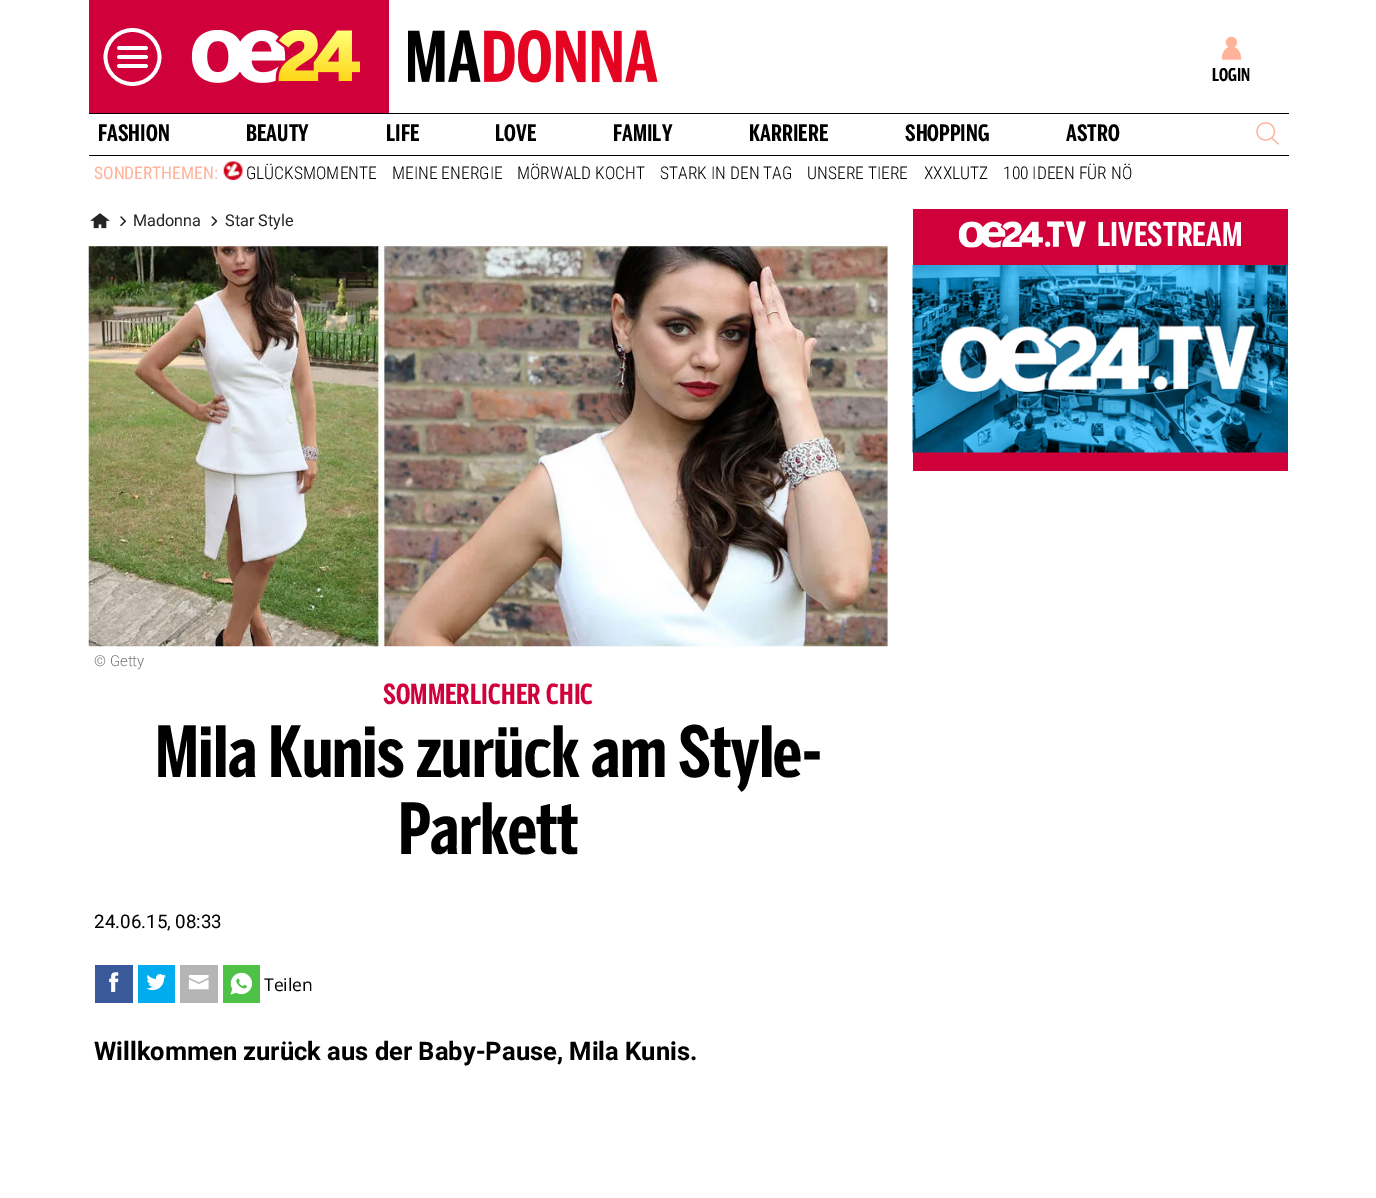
%!PS-Adobe-3.0
%%BoundingBox: 0 0 1376 1198
%%LanguageLevel: 3
%%Pages: 1
%%EndComments
%%BeginProlog
/drawimage { 5 dict begin { /h /w /y /x /name } { exch def } forall
  gsave x y translate w h scale
  w h 8 [w 0 0 h 0 0] name (r) file false 3 colorimage grestore end } def
%%EndProlog
%%BeginSetup
<< /PageSize [1376 1198] >> setpagedevice
%%EndSetup
%%Page: 1 1
0 1198 translate 1 -1 scale
4 setmiterlimit
1 setgray
0 0 1376 1198 rectfill
0.816 0.004 0.227 setrgbcolor
89 0 300 113 rectfill
1 setgray
3.7 setlinewidth
newpath 132.5 57 27 0 360 arc closepath stroke
1 setlinecap
newpath 119 48 moveto 146 48 lineto 119 57 moveto 146 57 lineto 119 66 moveto 146 66 lineto stroke
(images/1.raw) 191 30 169 53 drawimage
(images/2.raw) 408 30 250 53 drawimage
(images/3.raw) 1221 36 21 24 drawimage
0 setgray
89 113 1200 1 rectfill
89 155 1200 1 rectfill
(images/4.raw) 1256 122 23 23 drawimage
(images/5.raw) 223 161 20 19 drawimage
(images/6.raw) 90 213 20 16 drawimage
(images/7.raw) 120 216 6 10 drawimage
(images/8.raw) 211 216 7 10 drawimage
0.91 setgray
89 246 799 400 rectfill
(images/9.raw) 88 246 800 401 drawimage
0.227 0.349 0.6 setrgbcolor
95 965 38 38 rectfill
(images/10.raw) 109 972 10 20 drawimage
0 0.675 0.933 setrgbcolor
138 965 37 38 rectfill
(images/11.raw) 146 974 20 17 drawimage
0.71 setgray
180 965 38 38 rectfill
(images/12.raw) 188 975 21 15 drawimage
0.302 0.761 0.278 setrgbcolor
223 965 37 38 rectfill
(images/13.raw) 230 972 23 23 drawimage
0.816 0.004 0.227 setrgbcolor
913 209 375 262 rectfill
(images/14.raw) 958 221 128 27 drawimage
(images/15.raw) 912 265 376 188 drawimage
/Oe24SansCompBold-Bold [17.5 0 0 -17.5 0 0] selectfont
0 setgray
1212 81 moveto (LOGIN) show
/Oe24SansCompBold-Bold [22.5 0 0 -22.5 0 0] selectfont
98 141 moveto (FASHION) show
246 141 moveto (BEAUTY) show
386 141 moveto (LIFE) show
495 141 moveto (LOVE) show
613 141 moveto (FAMILY) show
749 141 moveto (KARRIERE) show
905 141 moveto (SHOPPING) show
1066 141 moveto (ASTRO) show
/RobotoCondensed-Regular [17.5 0 0 -17.5 0 0] selectfont
1 0.702 0.608 setrgbcolor
94 179 moveto (SONDERTHEMEN:) show
/RobotoCondensed-Light [17.5 0 0 -17.5 0 0] selectfont
0 setgray
246 179 moveto (GLÜCKSMOMENTE) show
392 179 moveto (MEINE ENERGIE) show
517 179 moveto (MÖRWALD KOCHT) show
660 179 moveto (STARK IN DEN TAG) show
807 179 moveto (UNSERE TIERE) show
924 179 moveto (XXXLUTZ) show
1003 179 moveto (100 IDEEN FÜR NÖ) show
/Roboto-Regular [16.25 0 0 -16.25 0 0] selectfont
0.141 setgray
133 226 moveto (Madonna) show
225 226 moveto (Star Style) show
/Roboto-Light [15 0 0 -15 0 0] selectfont
0.471 0.459 0.443 setrgbcolor
94 666 moveto (© Getty) show
/Oe24SansCompBold-Bold [27.5 0 0 -27.5 0 0] selectfont
0.816 0.004 0.227 setrgbcolor
383 704 moveto (SOMMERLICHER CHIC) show
/Oe24SansCompBold-Bold [70 0 0 -70 0 0] selectfont
0 setgray
155 777 moveto -0.75 0 (Mila Kunis zurück am Style-) ashow
398 854 moveto -0.75 0 (Parkett) ashow
/Roboto-Regular [18.75 0 0 -18.75 0 0] selectfont
94 928 moveto (24.06.15, 08:33) show
/OpenSans-Regular [17.5 0 0 -17.5 0 0] selectfont
264 991 moveto (Teilen) show
/Roboto-Bold [25.5 0 0 -25.5 0 0] selectfont
94 1060 moveto (Willkommen zurück aus der Baby-Pause, Mila Kunis.) show
/Oe24SansCompBold-Bold [32.5 0 0 -32.5 0 0] selectfont
1 setgray
1097 246 moveto (LIVESTREAM) show
showpage
%%EOF
